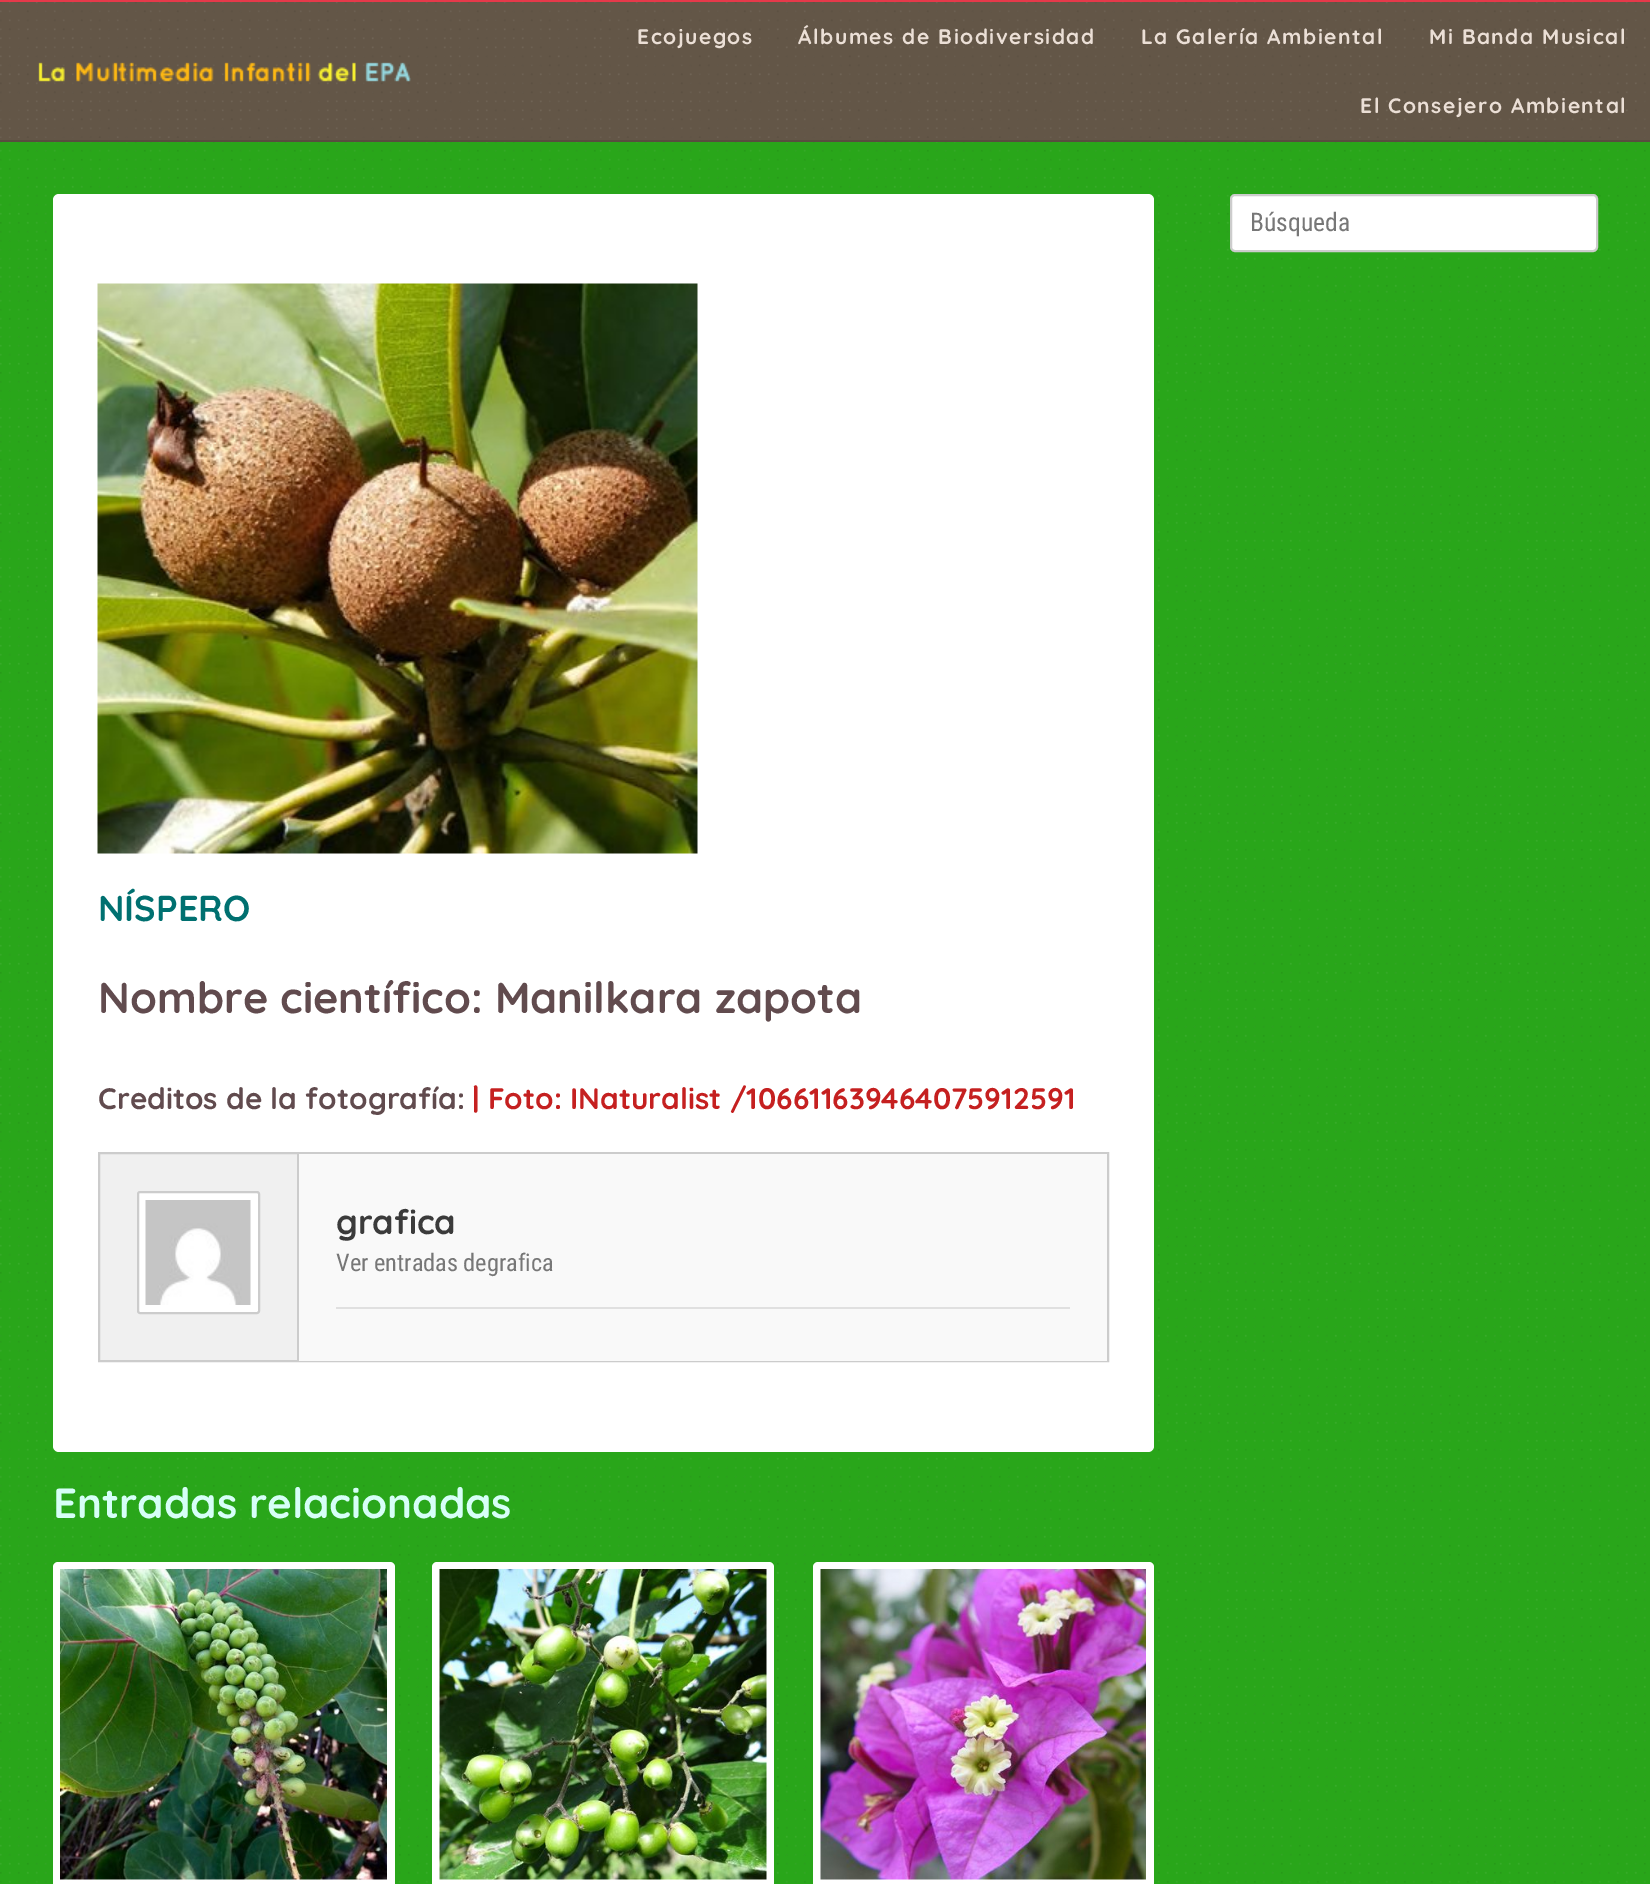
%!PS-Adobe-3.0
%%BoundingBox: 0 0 1650 1884
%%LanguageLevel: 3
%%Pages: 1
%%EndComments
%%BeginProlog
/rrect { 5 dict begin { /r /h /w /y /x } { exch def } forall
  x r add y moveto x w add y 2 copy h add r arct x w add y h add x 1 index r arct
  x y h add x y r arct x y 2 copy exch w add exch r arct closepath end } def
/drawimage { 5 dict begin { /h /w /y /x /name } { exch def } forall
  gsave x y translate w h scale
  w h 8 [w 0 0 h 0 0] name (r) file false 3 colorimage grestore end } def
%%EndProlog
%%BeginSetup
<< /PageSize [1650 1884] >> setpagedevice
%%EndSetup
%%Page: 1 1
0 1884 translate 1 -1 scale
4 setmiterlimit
0.161 0.651 0.102 setrgbcolor
0 0 1650 1884 rectfill
0.388 0.337 0.278 setrgbcolor
0 2 1650 138 rectfill
(images/1.raw) 0 2 1646 136 drawimage
0.902 0.224 0.29 setrgbcolor
0 0 1650 2 rectfill
0.349 0.302 0.251 setrgbcolor
0 140 1650 2 rectfill
(images/2.raw) 38 62 373 20 drawimage
(images/3.raw) 0 142 1646 1741 drawimage
1 setgray
1231 195 366 56 4 rrect gsave fill grestore
0.8 setgray
2 setlinewidth
stroke
1 setgray
53 194 1101 1258 6 rrect fill
(images/4.raw) 97 283 601 571 drawimage
0.941 setgray
100 1154 197 206 rectfill
0.8 setgray
99 1153 1009 208 rectstroke
1 setgray
138 1192 121 121 2 rrect gsave fill grestore
0.8 setgray
stroke
(images/5.raw) 145 1200 106 105 drawimage
0.976 setgray
299 1154 808 207 rectfill
0.8 setgray
297 1154 2 207 rectfill
0.878 setgray
336 1307 734 2 rectfill
1 setgray
53 1562 342 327 5 rrect fill
(images/6.raw) 60 1569 327 311 drawimage
432 1562 342 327 5 rrect fill
(images/7.raw) 439 1569 328 311 drawimage
813 1562 341 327 5 rrect fill
(images/8.raw) 820 1569 326 311 drawimage
/Quicksand-Light [21 0 0 -21 0 0] selectfont
0.922 0.875 0.839 setrgbcolor
637 44 moveto 1.5 0 (Ecojuegos) ashow
798 44 moveto 1.5 0 (Álbumes de Biodiversidad) ashow
1141 44 moveto 1.5 0 (La Galería Ambiental) ashow
1429 44 moveto 1.5 0 (Mi Banda Musical) ashow
1360 113 moveto 1.5 0 (El Consejero Ambiental) ashow
/RobotoCondensed-Regular [25.5 0 0 -25.5 0 0] selectfont
0.467 setgray
1250 231 moveto (Búsqueda) show
/Quicksand-Light [36 0 0 -36 0 0] selectfont
0 0.439 0.439 setrgbcolor
98 921 moveto (NÍSPERO) show
/Quicksand-Light [43.25 0 0 -43.25 0 0] selectfont
0.38 0.294 0.306 setrgbcolor
98 1013 moveto (Nombre científico: Manilkara zapota) show
/Quicksand-Light [29.7 0 0 -29.7 0 0] selectfont
98 1109 moveto (Creditos de la fotografía:) show
0.773 0.125 0.125 setrgbcolor
472 1109 moveto (| Foto: INaturalist /106611639464075912591) show
/Quicksand-Light [34 0 0 -34 0 0] selectfont
0.231 setgray
336 1234 moveto (grafica) show
/RobotoCondensed-Regular [24.25 0 0 -24.25 0 0] selectfont
0.467 setgray
336 1271 moveto (Ver entradas degrafica) show
/Quicksand-Light [42 0 0 -42 0 0] selectfont
0.839 1 0.969 setrgbcolor
53 1518 moveto (Entradas relacionadas) show
showpage
%%EOF
